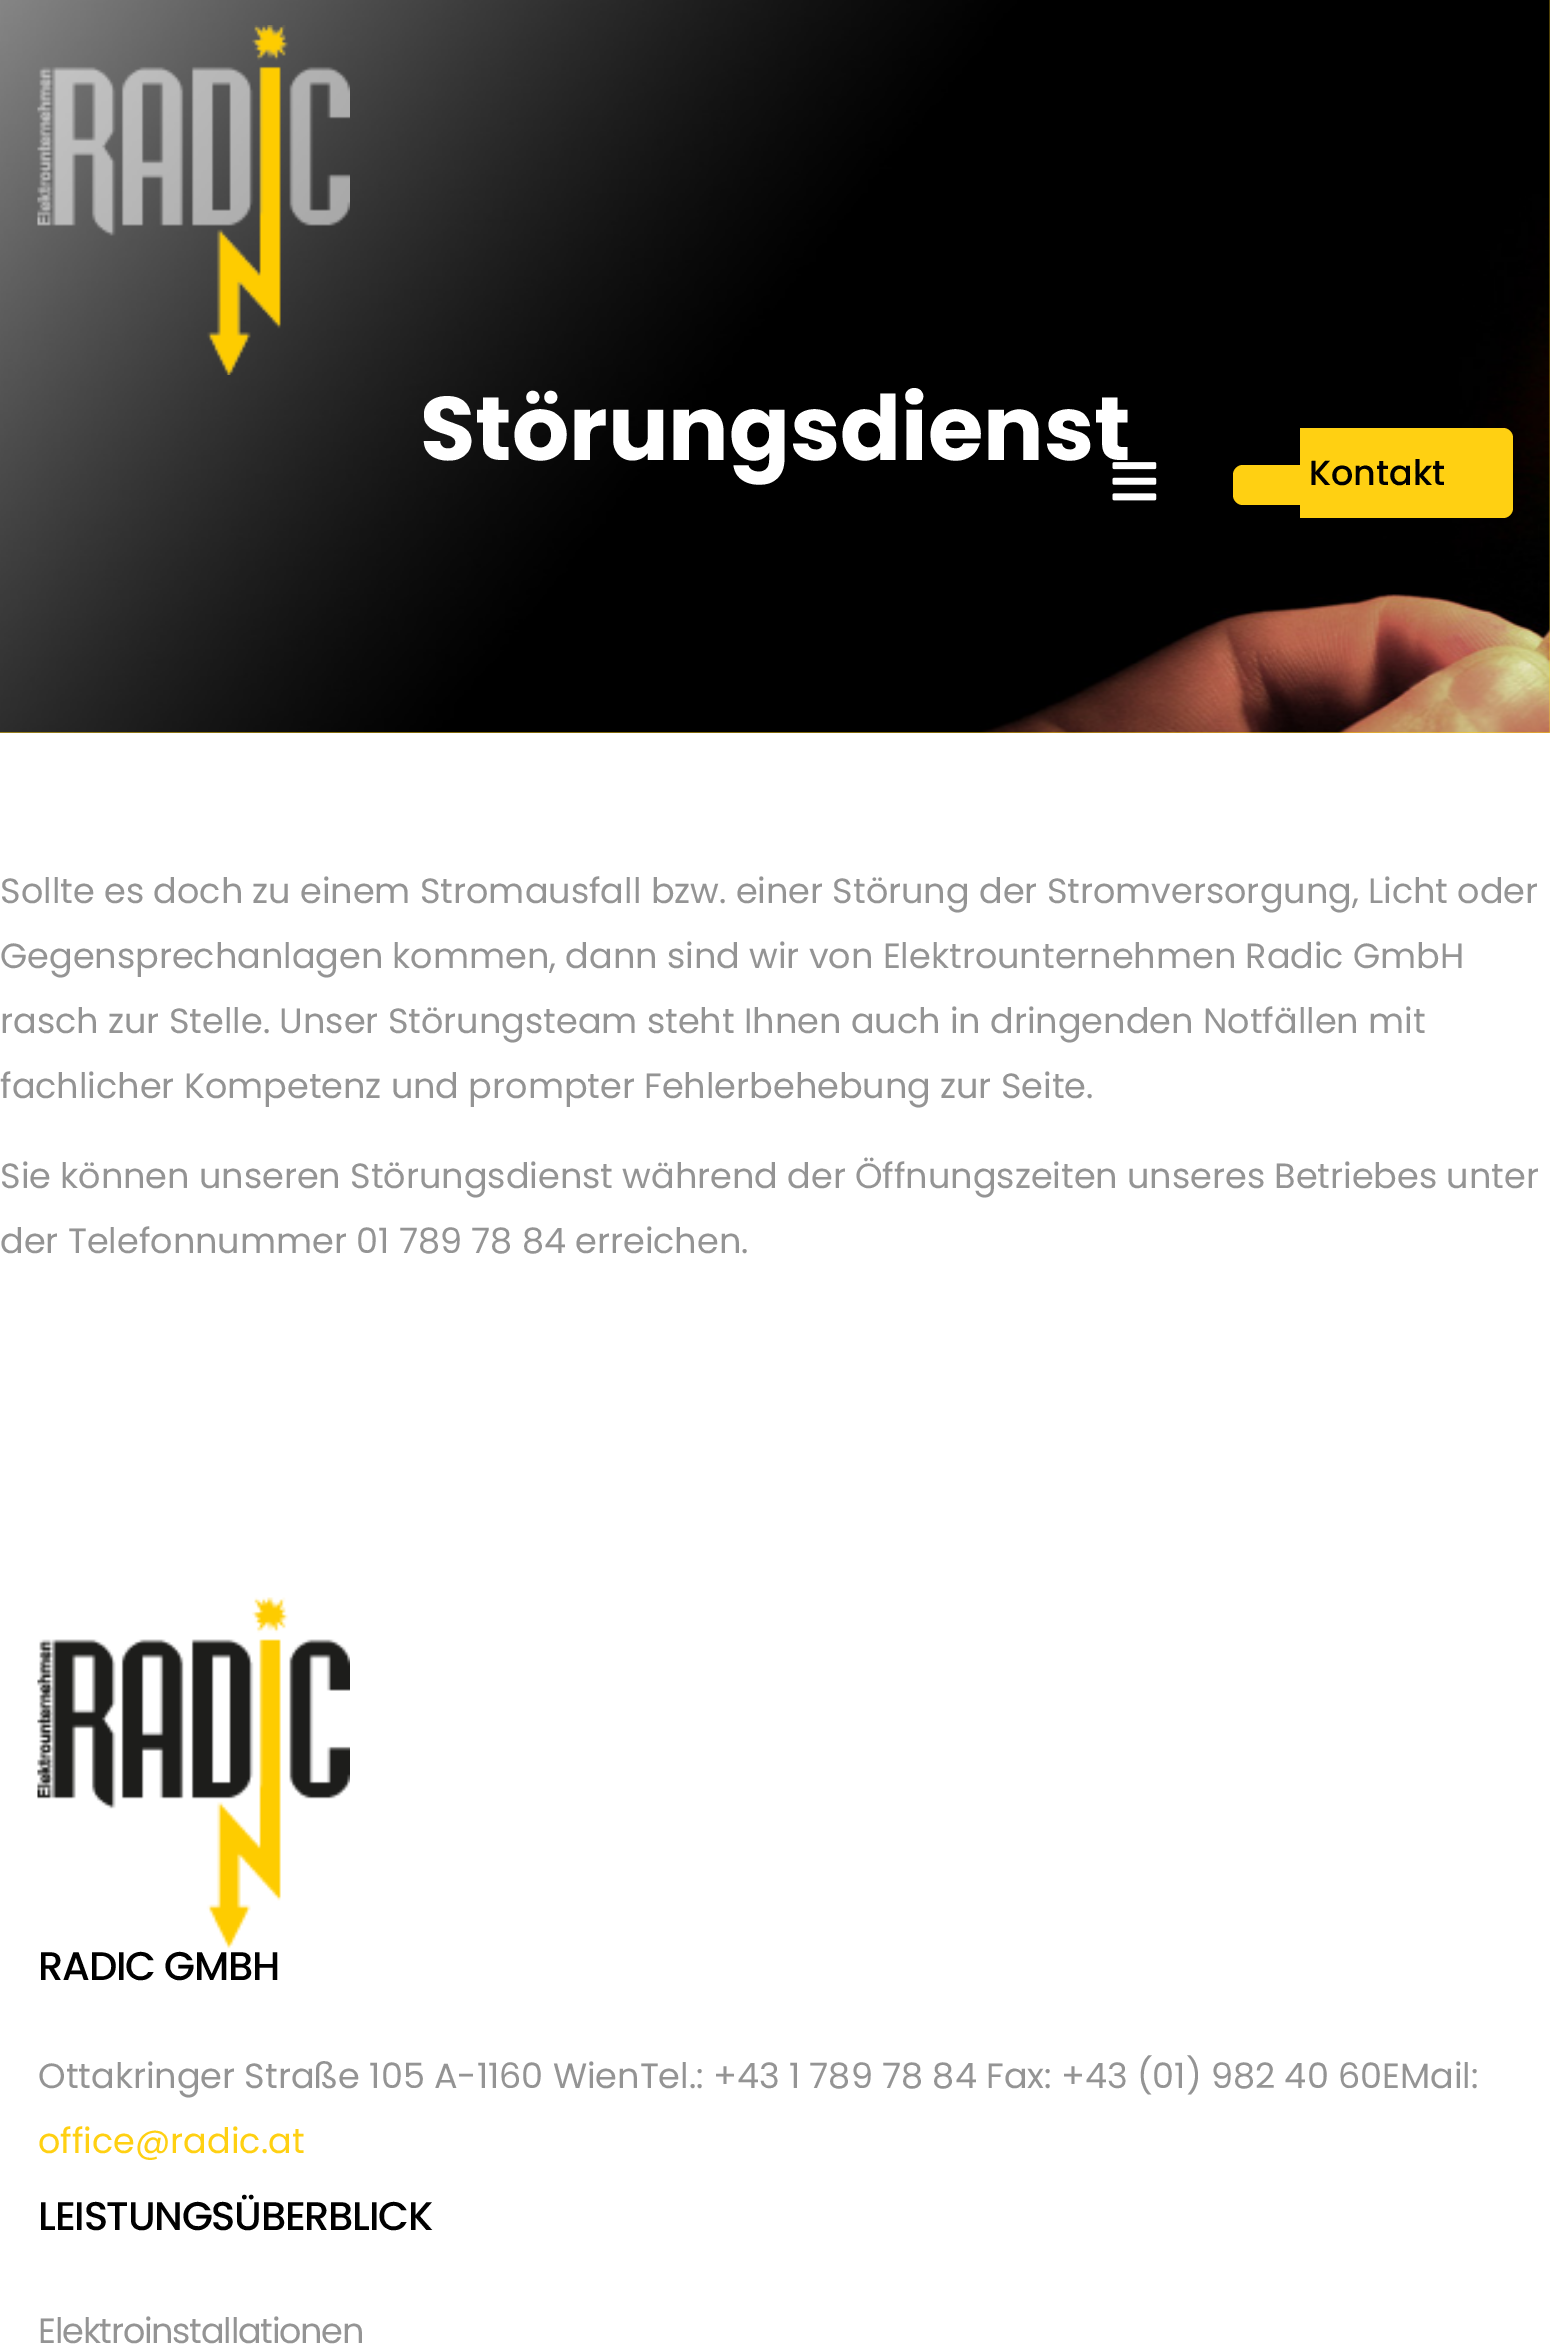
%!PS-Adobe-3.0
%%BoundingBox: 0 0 1550 2346
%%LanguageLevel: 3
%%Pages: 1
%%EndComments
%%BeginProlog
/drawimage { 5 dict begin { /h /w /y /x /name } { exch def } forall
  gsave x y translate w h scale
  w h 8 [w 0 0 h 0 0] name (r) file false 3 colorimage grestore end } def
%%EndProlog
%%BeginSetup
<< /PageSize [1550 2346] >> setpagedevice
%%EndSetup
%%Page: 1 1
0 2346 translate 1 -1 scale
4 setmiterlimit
1 setgray
0 0 1550 2346 rectfill
1 0.816 0.071 setrgbcolor
0 0 1550 733 rectfill
(images/1.raw) 0 0 1550 733 drawimage
(images/2.raw) 37 25 313 350 drawimage
newpath 1243 465 moveto 1300 465 lineto 1300 505 lineto 1243 505 lineto 1237.5 505 1233 500.5 1233 495 curveto 1233 475 lineto 1233 469.5 1237.5 465 1243 465 curveto closepath fill
newpath 1300 428 moveto 1503 428 lineto 1508.5 428 1513 432.5 1513 438 curveto 1513 508 lineto 1513 513.5 1508.5 518 1503 518 curveto 1300 518 lineto closepath fill
(images/4.raw) 37 1597 313 352 drawimage
/Poppins-Bold [90 0 0 -90 0 0] selectfont
1 setgray
420 460 moveto (Störungsdienst) show
(images/3.raw) 1112 462 45 39 drawimage
/Poppins-Medium [35 0 0 -35 0 0] selectfont
0 setgray
1309 485 moveto (Kontakt) show
/Poppins-Regular [35 0 0 -35 0 0] selectfont
0.58 setgray
0 903 moveto (Sollte es doch zu einem Stromausfall bzw. einer Störung der Stromversorgung, Licht oder) show
0 968 moveto (Gegensprechanlagen kommen, dann sind wir von Elektrounternehmen Radic GmbH) show
0 1033 moveto (rasch zur Stelle. Unser Störungsteam steht Ihnen auch in dringenden Notfällen mit) show
0 1098 moveto (fachlicher Kompetenz und prompter Fehlerbehebung zur Seite.) show
0 1188 moveto (Sie können unseren Störungsdienst während der Öffnungszeiten unseres Betriebes unter) show
0 1253 moveto (der Telefonnummer 01 789 78 84 erreichen.) show
/Poppins-Medium [40 0 0 -40 0 0] selectfont
0 setgray
38 1980 moveto -1.25 0 (RADIC GMBH) ashow
/Poppins-Regular [35 0 0 -35 0 0] selectfont
0.58 setgray
38 2088 moveto (Ottakringer Straße 105 A-1160 WienTel.: +43 1 789 78 84 Fax: +43 \(01\) 982 40 60EMail:) show
1 0.816 0.071 setrgbcolor
38 2153 moveto (office@radic.at) show
/Poppins-Medium [40 0 0 -40 0 0] selectfont
0 setgray
38 2230 moveto -1.25 0 (LEISTUNGSÜBERBLICK) ashow
/Poppins-Regular [35 0 0 -35 0 0] selectfont
0.58 setgray
38 2343 moveto -1.25 0 (Elektroinstallationen) ashow
showpage
%%EOF
